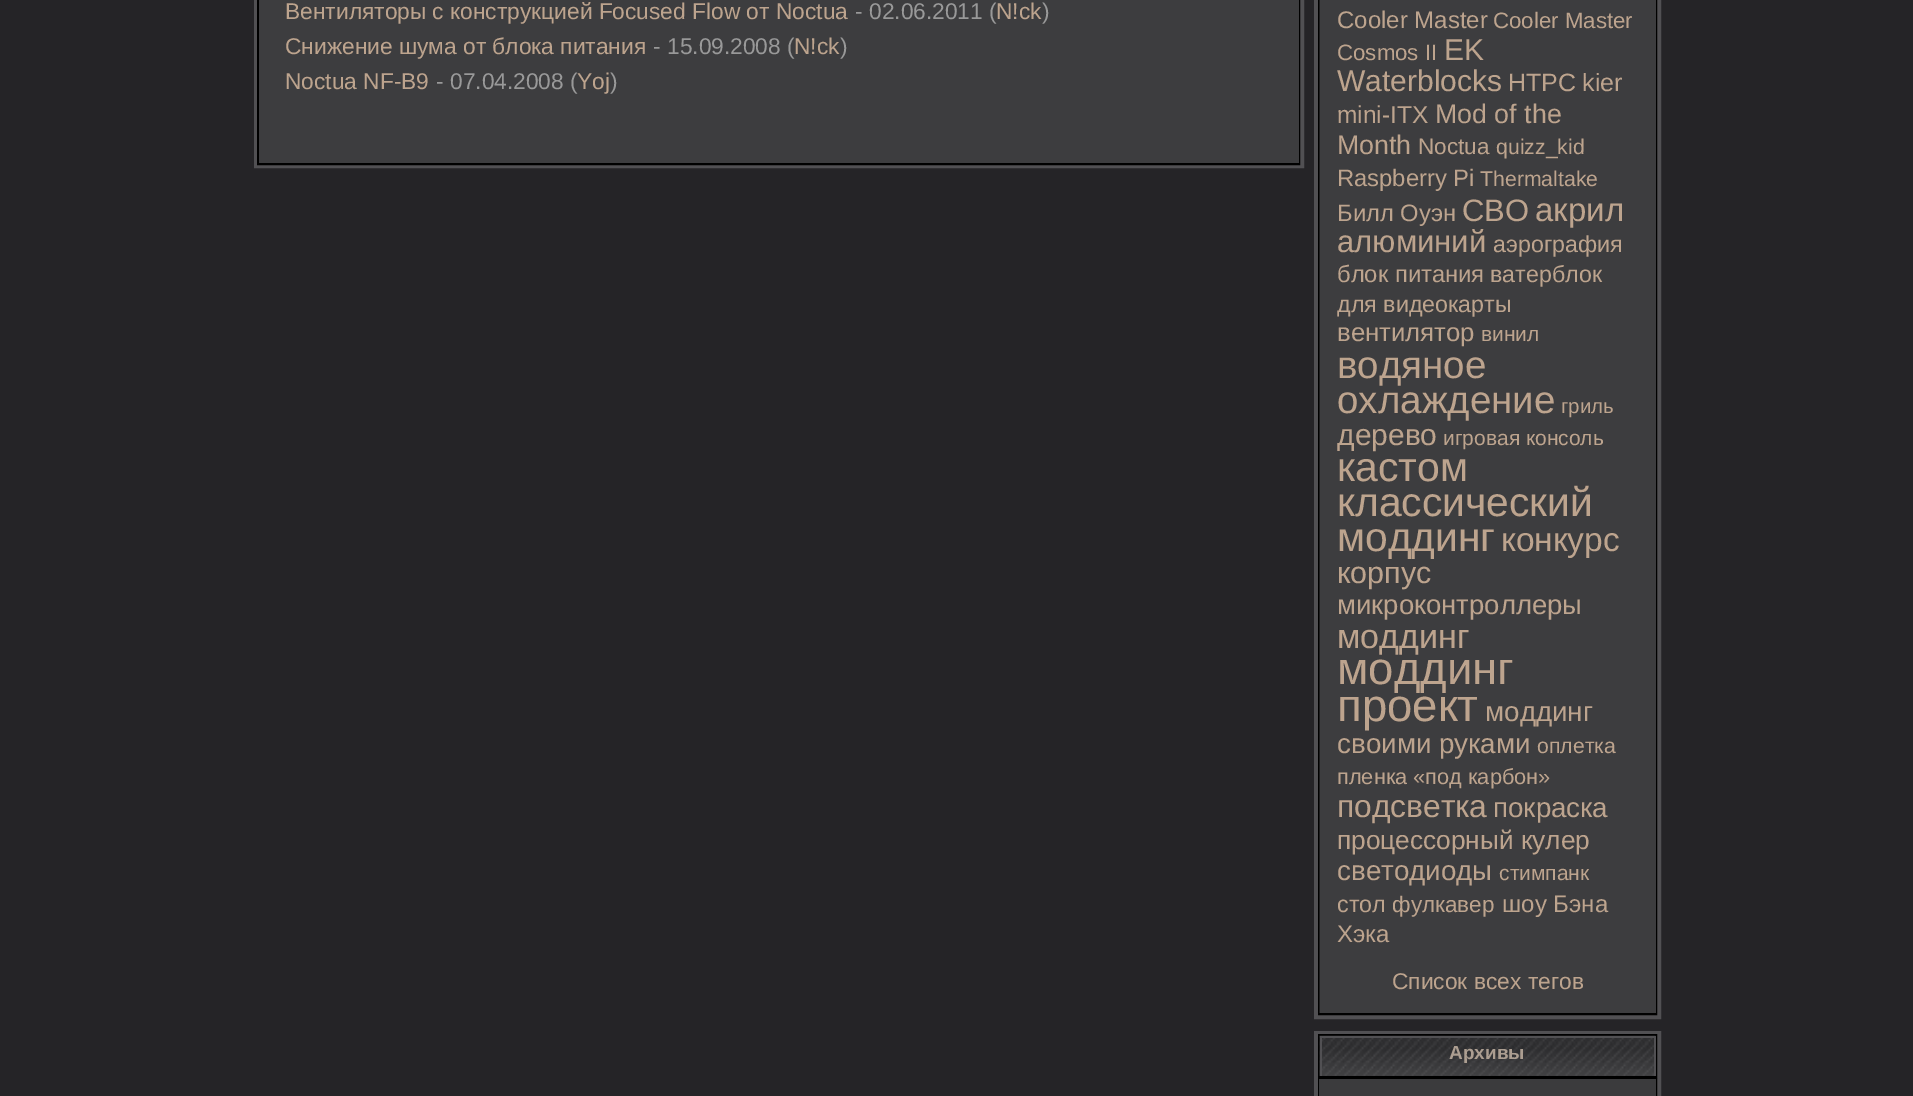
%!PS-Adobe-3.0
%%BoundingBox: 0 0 1913 1096
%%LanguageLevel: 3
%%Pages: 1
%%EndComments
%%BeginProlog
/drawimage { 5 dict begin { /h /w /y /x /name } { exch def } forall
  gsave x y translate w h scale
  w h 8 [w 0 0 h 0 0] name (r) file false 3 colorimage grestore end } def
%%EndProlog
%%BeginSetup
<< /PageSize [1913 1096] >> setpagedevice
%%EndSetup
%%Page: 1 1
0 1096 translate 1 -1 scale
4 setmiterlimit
0.145 0.141 0.153 setrgbcolor
0 0 1913 1096 rectfill
0.318 0.314 0.325 setrgbcolor
4 setlinewidth
256 -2 1046 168 rectstroke
0 setgray
2 setlinewidth
258 -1 1041 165 rectstroke
0.239 0.239 0.247 setrgbcolor
259 0 1040 163 rectfill
0.318 0.314 0.325 setrgbcolor
4 setlinewidth
1316 -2 343 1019 rectstroke
0 setgray
2 setlinewidth
1319 -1 337 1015 rectstroke
0.239 0.239 0.247 setrgbcolor
1320 0 336 1013 rectfill
0.114 0.114 0.118 setrgbcolor
1319 0 1 1013 rectfill
0.318 0.314 0.325 setrgbcolor
4 setlinewidth
1316 1033 343 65 rectstroke
0 setgray
2 setlinewidth
1319 1035 337 42 rectstroke
(images/1.raw) 1319 1035 337 41 drawimage
0.318 0.314 0.325 setrgbcolor
1320 1036 336 2 rectfill
1654 1036 2 40 rectfill
1320 1036 2 40 rectfill
0 setgray
1319 1079 337 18 rectstroke
0.231 0.231 0.239 setrgbcolor
1319 1079 337 17 rectfill
/LiberationSans-Regular [22.75 0 0 -22.75 0 0] selectfont
0.741 0.643 0.557 setrgbcolor
285 19 moveto (Вентиляторы с конструкцией Focused Flow от Noctua) show
0.6 setgray
855 19 moveto (- 02.06.2011 \() show
0.741 0.643 0.557 setrgbcolor
996 19 moveto (N!ck) show
0.6 setgray
1042 19 moveto (\)) show
0.741 0.643 0.557 setrgbcolor
285 54 moveto (Снижение шума от блока питания) show
0.6 setgray
653 54 moveto (- 15.09.2008 \() show
0.741 0.643 0.557 setrgbcolor
794 54 moveto (N!ck) show
0.6 setgray
840 54 moveto (\)) show
0.741 0.643 0.557 setrgbcolor
285 89 moveto (Noctua NF-B9) show
0.6 setgray
436 89 moveto (- 07.04.2008 \() show
0.741 0.643 0.557 setrgbcolor
577 89 moveto (Yoj) show
0.6 setgray
610 89 moveto (\)) show
/LiberationSans-Regular [24 0 0 -24 0 0] selectfont
0.741 0.643 0.557 setrgbcolor
1337 28 moveto (Cooler Master) show
/LiberationSans-Regular [22.25 0 0 -22.25 0 0] selectfont
1493 28 moveto (Cooler Master) show
1337 60 moveto (Cosmos II) show
/LiberationSans-Regular [30 0 0 -30 0 0] selectfont
1444 60 moveto (EK) show
1337 91 moveto (Waterblocks) show
/LiberationSans-Regular [25 0 0 -25 0 0] selectfont
1508 91 moveto (HTPC) show
1582 91 moveto (kier) show
/LiberationSans-Regular [24.5 0 0 -24.5 0 0] selectfont
1337 123 moveto (mini-ITX) show
/LiberationSans-Regular [26.75 0 0 -26.75 0 0] selectfont
1435 123 moveto (Mod of the) show
1337 154 moveto (Month) show
/LiberationSans-Regular [22.5 0 0 -22.5 0 0] selectfont
1418 154 moveto (Noctua) show
/LiberationSans-Regular [21.25 0 0 -21.25 0 0] selectfont
1496 154 moveto (quizz_kid) show
/LiberationSans-Regular [23.75 0 0 -23.75 0 0] selectfont
1337 186 moveto (Raspberry Pi) show
/LiberationSans-Regular [21.25 0 0 -21.25 0 0] selectfont
1480 186 moveto (Thermaltake) show
/LiberationSans-Regular [23.75 0 0 -23.75 0 0] selectfont
1337 221 moveto (Билл Оуэн) show
/LiberationSans-Regular [31 0 0 -31 0 0] selectfont
1462 221 moveto (СВО) show
/LiberationSans-Regular [33 0 0 -33 0 0] selectfont
1535 221 moveto (акрил) show
/LiberationSans-Regular [31 0 0 -31 0 0] selectfont
1337 252 moveto (алюминий) show
/LiberationSans-Regular [23.25 0 0 -23.25 0 0] selectfont
1493 252 moveto (аэрография) show
/LiberationSans-Regular [23.75 0 0 -23.75 0 0] selectfont
1337 282 moveto (блок питания) show
/LiberationSans-Regular [23.25 0 0 -23.25 0 0] selectfont
1490 282 moveto (ватерблок) show
1337 312 moveto (для видеокарты) show
/LiberationSans-Regular [25.75 0 0 -25.75 0 0] selectfont
1337 341 moveto (вентилятор) show
/LiberationSans-Regular [21 0 0 -21 0 0] selectfont
1481 341 moveto (винил) show
/LiberationSans-Regular [38.5 0 0 -38.5 0 0] selectfont
1337 378 moveto (водяное) show
1337 413 moveto (охлаждение) show
/LiberationSans-Regular [20.5 0 0 -20.5 0 0] selectfont
1561 413 moveto (гриль) show
/LiberationSans-Regular [30 0 0 -30 0 0] selectfont
1337 445 moveto (дерево) show
/LiberationSans-Regular [21 0 0 -21 0 0] selectfont
1443 445 moveto (игровая консоль) show
/LiberationSans-Regular [41 0 0 -41 0 0] selectfont
1337 481 moveto (кастом) show
/LiberationSans-Regular [40.75 0 0 -40.75 0 0] selectfont
1337 516 moveto (классический) show
1337 551 moveto (моддинг) show
/LiberationSans-Regular [33.5 0 0 -33.5 0 0] selectfont
1501 551 moveto (конкурс) show
/LiberationSans-Regular [30.5 0 0 -30.5 0 0] selectfont
1337 583 moveto (корпус) show
/LiberationSans-Regular [27.5 0 0 -27.5 0 0] selectfont
1337 614 moveto (микроконтроллеры) show
/LiberationSans-Regular [34 0 0 -34 0 0] selectfont
1337 648 moveto (моддинг) show
/LiberationSans-Regular [45.5 0 0 -45.5 0 0] selectfont
1337 684 moveto (моддинг) show
1337 721 moveto (проект) show
/LiberationSans-Regular [27.75 0 0 -27.75 0 0] selectfont
1485 721 moveto (моддинг) show
1337 753 moveto (своими руками) show
/LiberationSans-Regular [21.25 0 0 -21.25 0 0] selectfont
1537 753 moveto (оплетка) show
/LiberationSans-Regular [21.75 0 0 -21.75 0 0] selectfont
1337 784 moveto (пленка «под карбон») show
/LiberationSans-Regular [31.75 0 0 -31.75 0 0] selectfont
1337 817 moveto (подсветка) show
/LiberationSans-Regular [27.75 0 0 -27.75 0 0] selectfont
1493 817 moveto (покраска) show
/LiberationSans-Regular [26.25 0 0 -26.25 0 0] selectfont
1337 849 moveto (процессорный кулер) show
/LiberationSans-Regular [27.75 0 0 -27.75 0 0] selectfont
1337 880 moveto (светодиоды) show
/LiberationSans-Regular [21 0 0 -21 0 0] selectfont
1499 880 moveto (стимпанк) show
/LiberationSans-Regular [23.25 0 0 -23.25 0 0] selectfont
1337 912 moveto (стол) show
/LiberationSans-Regular [22.5 0 0 -22.5 0 0] selectfont
1392 912 moveto (фулкавер) show
/LiberationSans-Regular [24 0 0 -24 0 0] selectfont
1502 912 moveto (шоу Бэна) show
1337 942 moveto (Хэка) show
/LiberationSans-Regular [22.75 0 0 -22.75 0 0] selectfont
1392 989 moveto (Список всех тегов) show
/LiberationSans-Bold [19 0 0 -19 0 0] selectfont
0.675 0.62 0.569 setrgbcolor
1449 1059 moveto (Архивы) show
showpage
%%EOF
